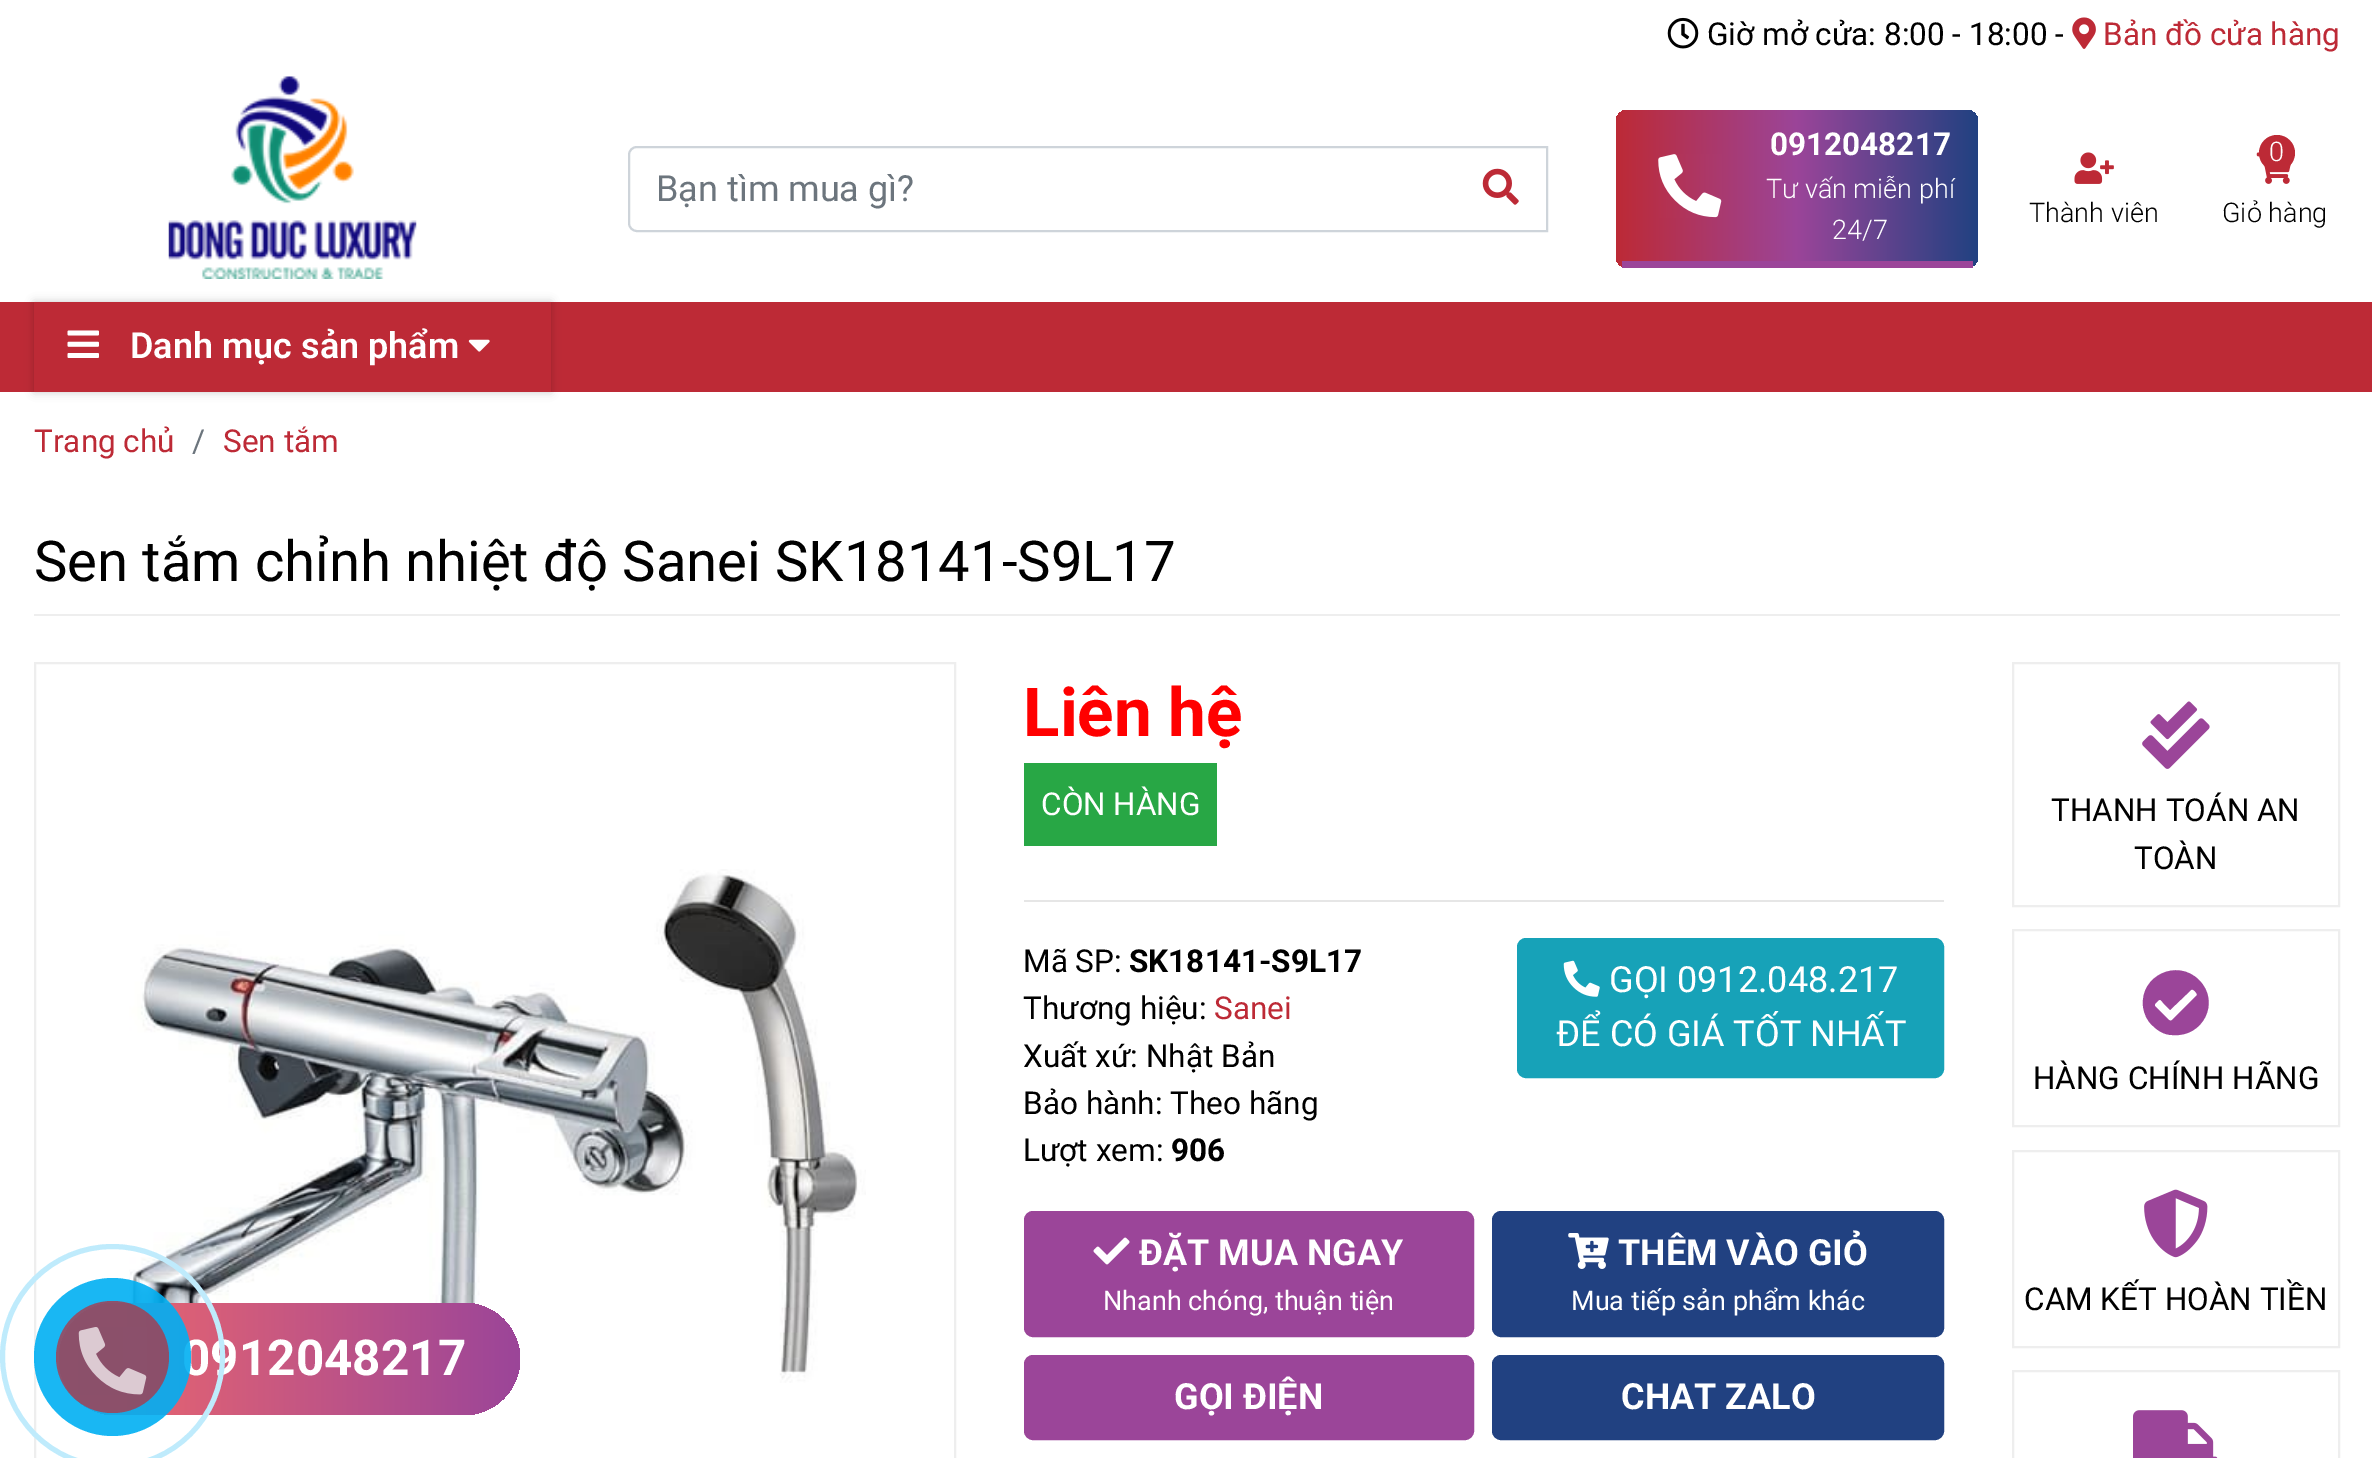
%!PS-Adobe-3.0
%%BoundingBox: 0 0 2372 1458
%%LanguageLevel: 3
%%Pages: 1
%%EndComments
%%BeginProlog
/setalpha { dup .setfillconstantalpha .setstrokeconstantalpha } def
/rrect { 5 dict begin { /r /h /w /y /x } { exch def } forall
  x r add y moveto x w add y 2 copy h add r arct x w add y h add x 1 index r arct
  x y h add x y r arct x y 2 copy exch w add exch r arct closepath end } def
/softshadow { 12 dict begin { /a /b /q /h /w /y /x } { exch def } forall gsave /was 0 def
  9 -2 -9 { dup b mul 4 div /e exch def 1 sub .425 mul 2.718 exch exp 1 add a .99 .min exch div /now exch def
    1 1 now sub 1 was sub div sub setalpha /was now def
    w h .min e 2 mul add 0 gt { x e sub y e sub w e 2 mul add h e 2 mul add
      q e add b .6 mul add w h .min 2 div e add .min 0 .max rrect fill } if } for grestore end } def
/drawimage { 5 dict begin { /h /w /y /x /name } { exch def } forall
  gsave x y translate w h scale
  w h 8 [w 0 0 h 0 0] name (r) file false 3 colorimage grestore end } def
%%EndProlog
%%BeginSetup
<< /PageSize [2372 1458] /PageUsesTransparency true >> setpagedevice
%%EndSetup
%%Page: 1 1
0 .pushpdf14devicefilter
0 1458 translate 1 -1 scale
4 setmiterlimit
1 setgray
0 0 2372 1458 rectfill
(images/1.raw) 1667 17 32 32 drawimage
(images/2.raw) 2072 17 24 32 drawimage
(images/3.raw) 168 76 249 203 drawimage
0.808 0.831 0.855 setrgbcolor
2 setlinewidth
newpath 637 147 moveto 1547 147 lineto 1547 231 lineto 637 231 lineto 632.5 231 629 227.5 629 223 curveto 629 155 lineto 629 150.5 632.5 147 637 147 curveto closepath stroke
(images/4.raw) 1482 168 37 37 drawimage
gsave 1616 110 362 158 11 rrect clip newpath
<< /ShadingType 2 /ColorSpace /DeviceRGB /Coords [1616 186 1978 186] /Extend [true true] /Function << /FunctionType 3 /Domain [0 1] /Functions [<< /FunctionType 2 /Domain [0 1] /C0 [0.741 0.165 0.212] /C1 [0.608 0.271 0.6] /N 1 >> << /FunctionType 2 /Domain [0 1] /C0 [0.608 0.271 0.6] /C1 [0.129 0.255 0.506] /N 1 >>] /Bounds [0.5] /Encode [0 1 0 1] >> >> shfill grestore
0.608 0.271 0.6 setrgbcolor
1622 261 351 7 rectfill
(images/5.raw) 1658 154 64 64 drawimage
(images/6.raw) 2256 152 35 32 drawimage
0.741 0.165 0.212 setrgbcolor
newpath 2277 153 18 0 360 arc closepath fill
(images/7.raw) 2074 152 40 32 drawimage
0 302 2372 90 rectfill
gsave
newpath 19 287 moveto 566 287 lineto 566 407 lineto 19 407 lineto closepath 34 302 moveto 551 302 lineto 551 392 lineto 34 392 lineto closepath eoclip newpath
0 setgray
34 302 517 90 0 4.5 0.2 softshadow
grestore
(images/8.raw) 67 330 32 28 drawimage
(images/9.raw) 468 339 22 13 drawimage
0.933 setgray
34 614 2306 2 rectfill
35 663 920 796 rectstroke
(images/10.raw) 129 869 737 514 drawimage
0.157 0.655 0.271 setrgbcolor
1024 763 193 83 rectfill
0.902 setgray
1024 900 920 2 rectfill
0.09 0.635 0.722 setrgbcolor
1518 939 425 138 8 rrect gsave fill grestore
stroke
(images/11.raw) 1563 960 37 37 drawimage
0.608 0.271 0.6 setrgbcolor
1025 1212 448 124 8 rrect gsave fill grestore
stroke
(images/12.raw) 1093 1237 37 28 drawimage
0.129 0.255 0.506 setrgbcolor
1493 1212 450 124 8 rrect gsave fill grestore
stroke
(images/13.raw) 1568 1233 41 36 drawimage
0.608 0.271 0.6 setrgbcolor
1025 1356 448 83 8 rrect gsave fill grestore
stroke
0.129 0.255 0.506 setrgbcolor
1493 1356 450 83 8 rrect gsave fill grestore
stroke
0.933 setgray
2013 663 326 243 rectstroke
(images/14.raw) 2142 701 68 68 drawimage
2013 930 326 196 rectstroke
0.608 0.271 0.6 setrgbcolor
newpath 2199 980 moveto 2221 1002 2203 1038 2172 1035 curveto 2165 1035 2158 1031 2153 1026 curveto 2147 1021 2144 1014 2143 1006 curveto 2140 976 2177 958 2199 980 curveto closepath 2172 1020 moveto 2197 995 lineto 2197 993 2193 988 2191 990 curveto 2170 1010 lineto 2164 1004 lineto 2161 1000 2160 998 2157 1002 curveto 2156 1003 2154 1004 2155 1006 curveto 2167 1018 lineto 2168 1019 2170 1022 2172 1020 curveto closepath fill
0.933 setgray
2013 1151 326 196 rectstroke
(images/15.raw) 2144 1189 64 69 drawimage
2013 1371 326 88 rectstroke
(images/16.raw) 2133 1410 85 48 drawimage
gsave 59 1303 461 112 56 rrect clip newpath
<< /ShadingType 2 /ColorSpace /DeviceRGB /Coords [59 1359 520 1359] /Extend [true true] /Function << /FunctionType 2 /Domain [0 1] /C0 [0.953 0.416 0.416] /C1 [0.608 0.271 0.6] /N 1 >> >> shfill grestore
/Roboto-Regular [31.5 0 0 -31.5 0 0] selectfont
0 setgray
1707 45 moveto (Giờ mở cửa: 8:00 - 18:00 -) show
0.741 0.165 0.212 setrgbcolor
2103 45 moveto (Bản đồ cửa hàng) show
/Roboto-Regular [36 0 0 -36 0 0] selectfont
0.424 0.459 0.49 setrgbcolor
656 201 moveto (Bạn tìm mua gì?) show
/Roboto-Bold [31.5 0 0 -31.5 0 0] selectfont
1 setgray
1770 155 moveto (0912048217) show
/Roboto-Light [27 0 0 -27 0 0] selectfont
1766 198 moveto (Tư vấn miễn phí) show
1832 239 moveto (24/7) show
2269 161 moveto (0) show
0 setgray
2222 222 moveto (Giỏ hàng) show
2029 222 moveto (Thành viên) show
/Roboto-SemiBold [36 0 0 -36 0 0] selectfont
1 setgray
130 358 moveto (Danh mục sản phẩm) show
/Roboto-Regular [31.5 0 0 -31.5 0 0] selectfont
0.741 0.165 0.212 setrgbcolor
34 452 moveto (Trang chủ) show
0.424 0.459 0.49 setrgbcolor
192 452 moveto (/) show
0.741 0.165 0.212 setrgbcolor
223 452 moveto (Sen tắm) show
/Roboto-Regular [56.25 0 0 -56.25 0 0] selectfont
0 setgray
34 581 moveto (Sen tắm chỉnh nhiệt độ Sanei SK18141-S9L17) show
/Roboto-Bold [67.5 0 0 -67.5 0 0] selectfont
1 0 0 setrgbcolor
1023 736 moveto (Liên hệ) show
/Roboto-Regular [31.5 0 0 -31.5 0 0] selectfont
1 setgray
1041 815 moveto (CÒN HÀNG) show
0 setgray
1023 972 moveto (Mã SP:) show
/Roboto-Bold [31.5 0 0 -31.5 0 0] selectfont
1129 972 moveto (SK18141-S9L17) show
/Roboto-Regular [31.5 0 0 -31.5 0 0] selectfont
1023 1019 moveto (Thương hiệu:) show
0.741 0.165 0.212 setrgbcolor
1214 1019 moveto (Sanei) show
0 setgray
1023 1067 moveto (Xuất xứ: Nhật Bản) show
1023 1114 moveto (Bảo hành: Theo hãng) show
1023 1161 moveto (Lượt xem:) show
/Roboto-Bold [31.5 0 0 -31.5 0 0] selectfont
1171 1161 moveto (906) show
/Roboto-Regular [36 0 0 -36 0 0] selectfont
1 setgray
1609 992 moveto (GỌI 0912.048.217) show
1556 1046 moveto (ĐỂ CÓ GIÁ TỐT NHẤT) show
/Roboto-Bold [36 0 0 -36 0 0] selectfont
1139 1265 moveto (ĐẶT MUA NGAY) show
/Roboto-Regular [27 0 0 -27 0 0] selectfont
1103 1310 moveto (Nhanh chóng, thuận tiện) show
/Roboto-Bold [36 0 0 -36 0 0] selectfont
1618 1265 moveto (THÊM VÀO GIỎ) show
/Roboto-Regular [27 0 0 -27 0 0] selectfont
1571 1310 moveto (Mua tiếp sản phẩm khác) show
/Roboto-Bold [36 0 0 -36 0 0] selectfont
1174 1409 moveto (GỌI ĐIỆN) show
1621 1409 moveto (CHAT ZALO) show
/Roboto-Regular [31.5 0 0 -31.5 0 0] selectfont
0 setgray
2051 821 moveto (THANH TOÁN AN) show
2134 869 moveto (TOÀN) show
2033 1089 moveto (HÀNG CHÍNH HÃNG) show
2024 1310 moveto (CAM KẾT HOÀN TIỀN) show
/Roboto-Bold [49.5 0 0 -49.5 0 0] selectfont
1 setgray
182 1375 moveto (0912048217) show
0.749 0.922 0.988 setrgbcolor
5 setlinewidth
newpath 112.5 1356.5 110 0 360 arc closepath stroke
0.9 setalpha
0 0.686 0.949 setrgbcolor
34 1278 157 158 78.5 rrect fill
0.7 setalpha
0.741 0.165 0.212 setrgbcolor
56 1301 113 112 56 rrect fill
1 setalpha
(images/17.raw) 78 1327 69 68 drawimage
.poppdf14devicefilter showpage
%%EOF
